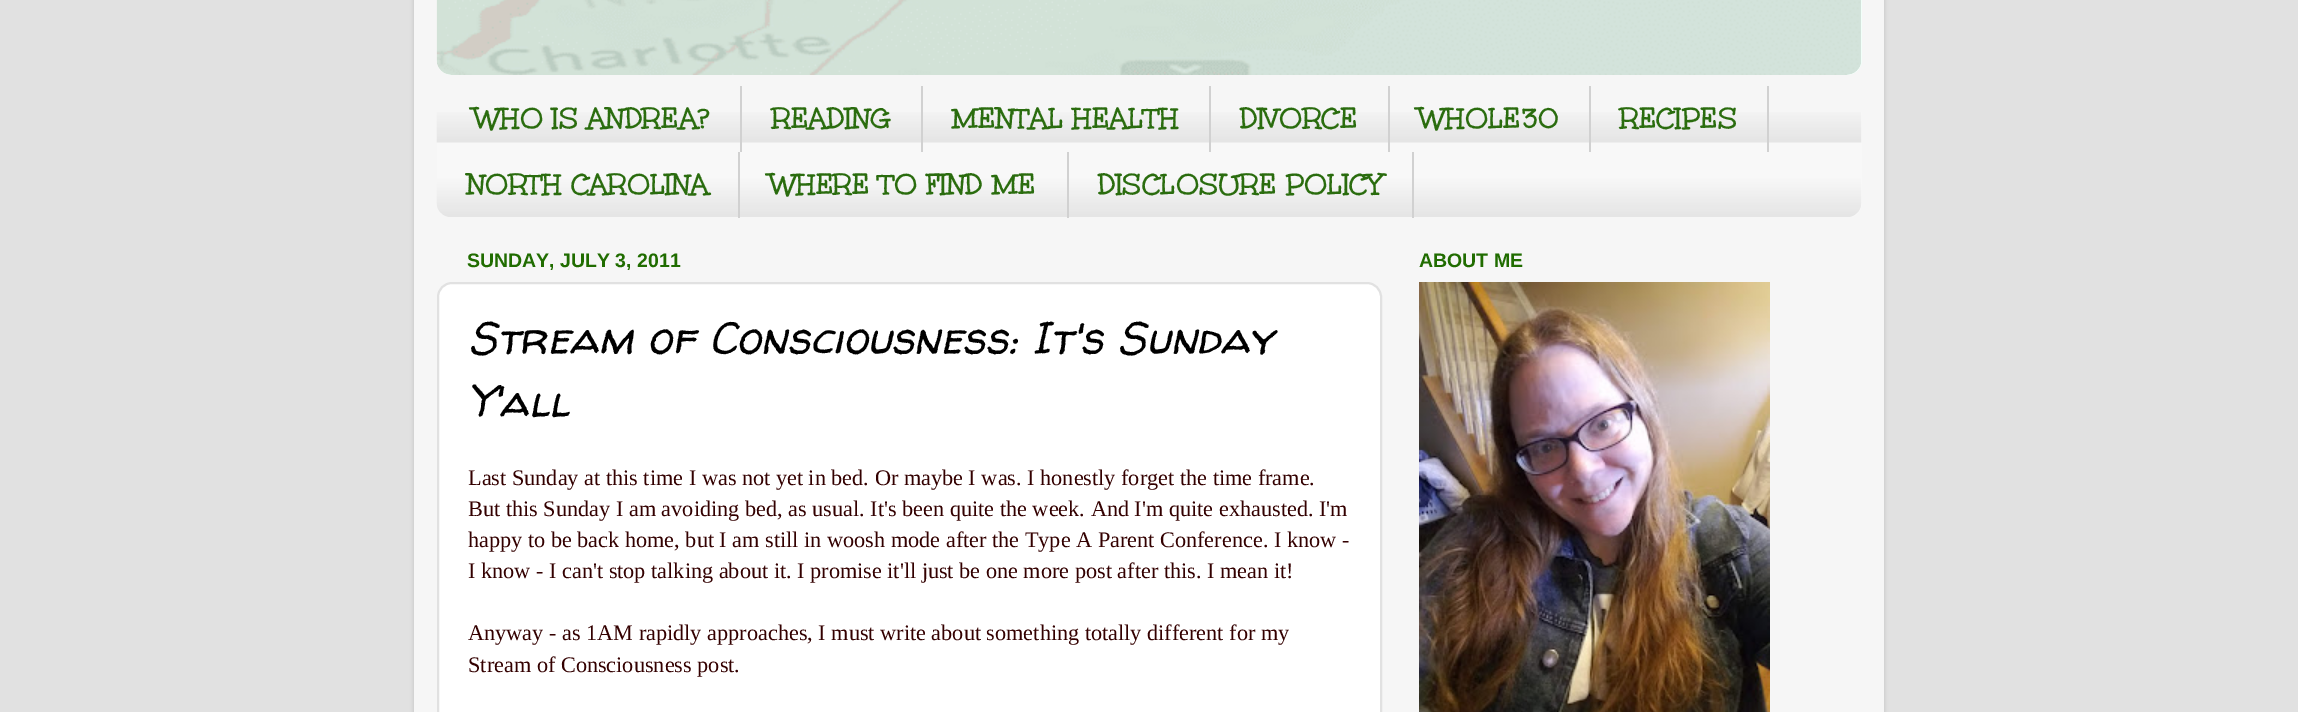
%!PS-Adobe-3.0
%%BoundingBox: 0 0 2298 712
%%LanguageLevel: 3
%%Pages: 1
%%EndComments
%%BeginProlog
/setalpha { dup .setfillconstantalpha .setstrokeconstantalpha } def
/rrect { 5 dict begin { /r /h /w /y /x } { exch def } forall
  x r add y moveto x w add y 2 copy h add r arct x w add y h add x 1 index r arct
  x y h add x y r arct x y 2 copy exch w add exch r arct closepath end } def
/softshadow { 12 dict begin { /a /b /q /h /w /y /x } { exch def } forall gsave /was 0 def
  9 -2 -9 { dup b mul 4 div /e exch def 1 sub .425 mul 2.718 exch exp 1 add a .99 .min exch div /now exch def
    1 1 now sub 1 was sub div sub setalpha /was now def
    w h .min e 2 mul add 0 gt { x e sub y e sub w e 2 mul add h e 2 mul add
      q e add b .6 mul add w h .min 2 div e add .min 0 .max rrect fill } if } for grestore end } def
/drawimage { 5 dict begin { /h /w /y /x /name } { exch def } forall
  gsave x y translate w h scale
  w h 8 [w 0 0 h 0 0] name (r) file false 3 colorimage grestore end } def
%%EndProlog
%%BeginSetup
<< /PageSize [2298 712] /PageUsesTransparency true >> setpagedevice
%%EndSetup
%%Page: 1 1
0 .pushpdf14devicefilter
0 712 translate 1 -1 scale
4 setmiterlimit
0.882 setgray
0 0 2298 712 rectfill
0 setgray
414 -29 1470 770 23 2 0.15 softshadow
0.965 setgray
414 0 1470 712 rectfill
0.945 1 0.976 setrgbcolor
437 -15 1425 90 15 rrect fill
(images/1.raw) 436 0 1425 75 drawimage
(images/2.raw) 436 112 1426 105 drawimage
0.82 setgray
740 86 2 66 rectfill
921 86 2 66 rectfill
1209 86 2 66 rectfill
1388 86 2 66 rectfill
1589 86 2 66 rectfill
1767 86 2 66 rectfill
738 152 2 66 rectfill
1067 152 2 66 rectfill
1412 152 2 66 rectfill
1 setgray
438 283 943 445 14 rrect gsave fill grestore
0.882 setgray
2 setlinewidth
stroke
(images/3.raw) 1419 282 351 430 drawimage
/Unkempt-Bold [30 0 0 -30 0 0] selectfont
0.165 0.424 0.055 setrgbcolor
474 129 moveto (WHO IS ANDREA?) show
772 129 moveto (READING) show
952 129 moveto (MENTAL HEALTH) show
1240 129 moveto (DIVORCE) show
1419 129 moveto (WHOLE30) show
1620 129 moveto (RECIPES) show
467 195 moveto (NORTH CAROLINA) show
770 195 moveto (WHERE TO FIND ME) show
1098 195 moveto (DISCLOSURE POLICY) show
/LiberationSans-Bold [19.5 0 0 -19.5 0 0] selectfont
0.125 0.424 0 setrgbcolor
467 267 moveto (SUNDAY, JULY 3, 2011) show
/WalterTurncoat-Italic [45 0 0 -45 0 0] selectfont
0 setgray
468 354 moveto (Stream of Consciousness: It's Sunday) show
468 417 moveto (Y'all) show
/LiberationSerif-Regular [22.25 0 0 -22.25 0 0] selectfont
0.2 0 0 setrgbcolor
468 485 moveto (Last Sunday at this time I was not yet in bed. Or maybe I was. I honestly forget the time frame.) show
468 516 moveto (But this Sunday I am avoiding bed, as usual. It's been quite the week. And I'm quite exhausted. I'm) show
468 547 moveto (happy to be back home, but I am still in woosh mode after the Type A Parent Conference. I know -) show
468 578 moveto (I know - I can't stop talking about it. I promise it'll just be one more post after this. I mean it!) show
468 640 moveto (Anyway - as 1AM rapidly approaches, I must write about something totally different for my) show
468 672 moveto (Stream of Consciousness post.) show
/LiberationSans-Bold [19.5 0 0 -19.5 0 0] selectfont
0.125 0.424 0 setrgbcolor
1419 267 moveto (ABOUT ME) show
.poppdf14devicefilter showpage
%%EOF
